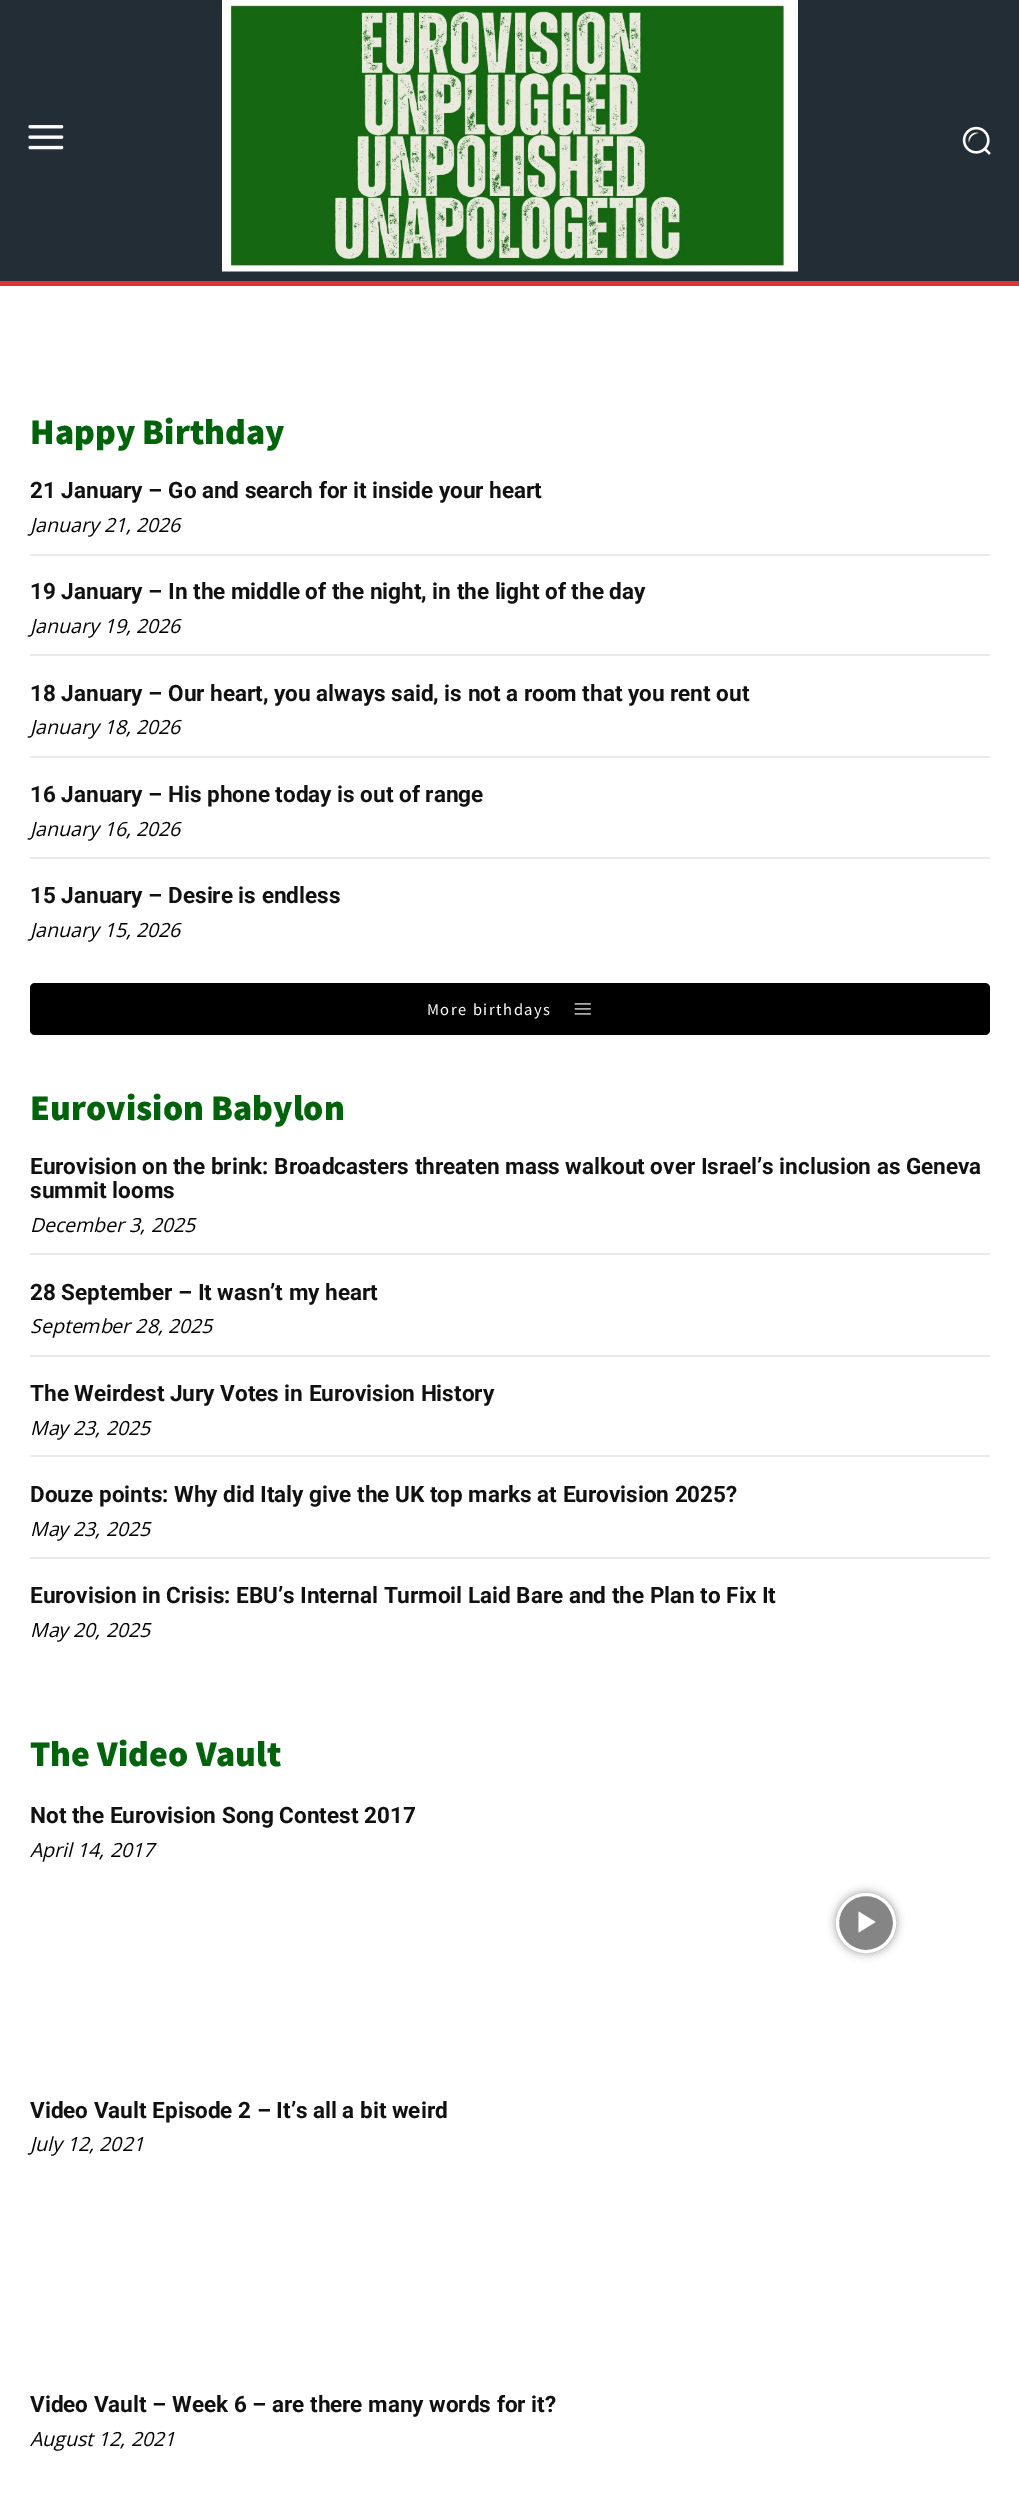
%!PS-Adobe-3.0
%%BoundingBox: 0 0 1019 2504
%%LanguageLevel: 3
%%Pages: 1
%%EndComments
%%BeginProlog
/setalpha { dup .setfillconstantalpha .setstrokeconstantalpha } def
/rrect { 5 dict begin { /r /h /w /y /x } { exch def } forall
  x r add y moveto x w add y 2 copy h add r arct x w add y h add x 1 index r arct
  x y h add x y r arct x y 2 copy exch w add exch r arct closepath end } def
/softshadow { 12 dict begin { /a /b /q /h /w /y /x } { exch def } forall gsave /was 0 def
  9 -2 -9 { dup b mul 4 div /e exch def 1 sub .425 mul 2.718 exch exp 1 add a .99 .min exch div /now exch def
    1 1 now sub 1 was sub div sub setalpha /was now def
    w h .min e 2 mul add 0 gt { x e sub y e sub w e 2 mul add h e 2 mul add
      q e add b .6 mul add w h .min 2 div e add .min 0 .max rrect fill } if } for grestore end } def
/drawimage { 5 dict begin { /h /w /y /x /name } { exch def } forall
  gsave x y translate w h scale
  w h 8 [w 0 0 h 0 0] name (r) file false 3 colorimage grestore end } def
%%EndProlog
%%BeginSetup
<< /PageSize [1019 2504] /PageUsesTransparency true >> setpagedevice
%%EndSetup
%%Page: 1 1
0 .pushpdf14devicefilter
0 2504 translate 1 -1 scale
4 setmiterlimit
1 setgray
0 0 1019 2504 rectfill
0.137 0.176 0.208 setrgbcolor
0 0 1019 281 rectfill
(images/1.raw) 28 125 36 25 drawimage
(images/2.raw) 222 0 576 272 drawimage
(images/3.raw) 962 126 29 29 drawimage
0.867 0.2 0.2 setrgbcolor
0 281 1019 5 rectfill
0.918 setgray
30 554 960 2 rectfill
30 654 960 2 rectfill
30 756 960 2 rectfill
30 857 960 2 rectfill
0 setgray
30 983 960 52 5 rrect fill
(images/4.raw) 574 1003 17 12 drawimage
0.918 setgray
30 1253 960 2 rectfill
30 1355 960 2 rectfill
30 1455 960 2 rectfill
30 1557 960 2 rectfill
gsave
newpath 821 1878 moveto 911 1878 lineto 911 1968 lineto 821 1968 lineto closepath 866 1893 moveto 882.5 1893 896 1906.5 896 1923 curveto 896 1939.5 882.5 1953 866 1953 curveto 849.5 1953 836 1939.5 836 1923 curveto 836 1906.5 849.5 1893 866 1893 curveto closepath eoclip newpath
0 setgray
836 1893 60 60 30 4.5 0.4 softshadow
grestore
0.48 setalpha
0 setgray
newpath 866 1923 28.5 0 360 arc closepath fill
1 setalpha
1 setgray
3 setlinewidth
newpath 866 1923 28.5 0 360 arc closepath stroke
newpath 858.5 1911.5 moveto 858.5 1932.5 lineto 875.5 1922 lineto closepath fill
/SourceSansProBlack-Black [36 0 0 -36 0 0] selectfont
0 0.388 0.043 setrgbcolor
30 444 moveto (Happy Birthday) show
/Roboto-Bold [22.5 0 0 -22.5 0 0] selectfont
0.067 setgray
30 498 moveto (21 January – Go and search for it inside your heart) show
/OpenSans-Italic [19.5 0 0 -19.5 0 0] selectfont
0 setgray
30 532 moveto (January 21, 2026) show
/Roboto-Bold [22.5 0 0 -22.5 0 0] selectfont
0.067 setgray
30 599 moveto (19 January – In the middle of the night, in the light of the day) show
/OpenSans-Italic [19.5 0 0 -19.5 0 0] selectfont
0 setgray
30 633 moveto (January 19, 2026) show
/Roboto-Bold [22.5 0 0 -22.5 0 0] selectfont
0.067 setgray
30 701 moveto (18 January – Our heart, you always said, is not a room that you rent out) show
/OpenSans-Italic [19.5 0 0 -19.5 0 0] selectfont
0 setgray
30 734 moveto (January 18, 2026) show
/Roboto-Bold [22.5 0 0 -22.5 0 0] selectfont
0.067 setgray
30 802 moveto (16 January – His phone today is out of range) show
/OpenSans-Italic [19.5 0 0 -19.5 0 0] selectfont
0 setgray
30 836 moveto (January 16, 2026) show
/Roboto-Bold [22.5 0 0 -22.5 0 0] selectfont
0.067 setgray
30 903 moveto (15 January – Desire is endless) show
/OpenSans-Italic [19.5 0 0 -19.5 0 0] selectfont
0 setgray
30 937 moveto (January 15, 2026) show
/SourceSansPro-Regular [16.5 0 0 -16.5 0 0] selectfont
1 setgray
427 1015 moveto 1.5 0 (More birthdays) ashow
/SourceSansProBlack-Black [36 0 0 -36 0 0] selectfont
0 0.388 0.043 setrgbcolor
30 1120 moveto (Eurovision Babylon) show
/Roboto-Bold [22.5 0 0 -22.5 0 0] selectfont
0.067 setgray
30 1174 moveto (Eurovision on the brink: Broadcasters threaten mass walkout over Israel’s inclusion as Geneva) show
30 1198 moveto (summit looms) show
/OpenSans-Italic [19.5 0 0 -19.5 0 0] selectfont
0 setgray
30 1232 moveto (December 3, 2025) show
/Roboto-Bold [22.5 0 0 -22.5 0 0] selectfont
0.067 setgray
30 1300 moveto (28 September – It wasn’t my heart) show
/OpenSans-Italic [19.5 0 0 -19.5 0 0] selectfont
0 setgray
30 1333 moveto (September 28, 2025) show
/Roboto-Bold [22.5 0 0 -22.5 0 0] selectfont
0.067 setgray
30 1401 moveto (The Weirdest Jury Votes in Eurovision History) show
/OpenSans-Italic [19.5 0 0 -19.5 0 0] selectfont
0 setgray
30 1435 moveto (May 23, 2025) show
/Roboto-Bold [22.5 0 0 -22.5 0 0] selectfont
0.067 setgray
30 1502 moveto (Douze points: Why did Italy give the UK top marks at Eurovision 2025?) show
/OpenSans-Italic [19.5 0 0 -19.5 0 0] selectfont
0 setgray
30 1536 moveto (May 23, 2025) show
/Roboto-Bold [22.5 0 0 -22.5 0 0] selectfont
0.067 setgray
30 1603 moveto (Eurovision in Crisis: EBU’s Internal Turmoil Laid Bare and the Plan to Fix It) show
/OpenSans-Italic [19.5 0 0 -19.5 0 0] selectfont
0 setgray
30 1637 moveto (May 20, 2025) show
/SourceSansProBlack-Black [36 0 0 -36 0 0] selectfont
0 0.388 0.043 setrgbcolor
30 1766 moveto (The Video Vault) show
/Roboto-Bold [22.5 0 0 -22.5 0 0] selectfont
0.067 setgray
30 1823 moveto (Not the Eurovision Song Contest 2017) show
/OpenSans-Italic [19.5 0 0 -19.5 0 0] selectfont
0 setgray
30 1857 moveto (April 14, 2017) show
/Roboto-Bold [22.5 0 0 -22.5 0 0] selectfont
0.067 setgray
30 2118 moveto (Video Vault Episode 2 – It’s all a bit weird) show
/OpenSans-Italic [19.5 0 0 -19.5 0 0] selectfont
0 setgray
30 2151 moveto (July 12, 2021) show
/Roboto-Bold [22.5 0 0 -22.5 0 0] selectfont
0.067 setgray
30 2412 moveto (Video Vault – Week 6 – are there many words for it?) show
/OpenSans-Italic [19.5 0 0 -19.5 0 0] selectfont
0 setgray
30 2446 moveto (August 12, 2021) show
.poppdf14devicefilter showpage
%%EOF
